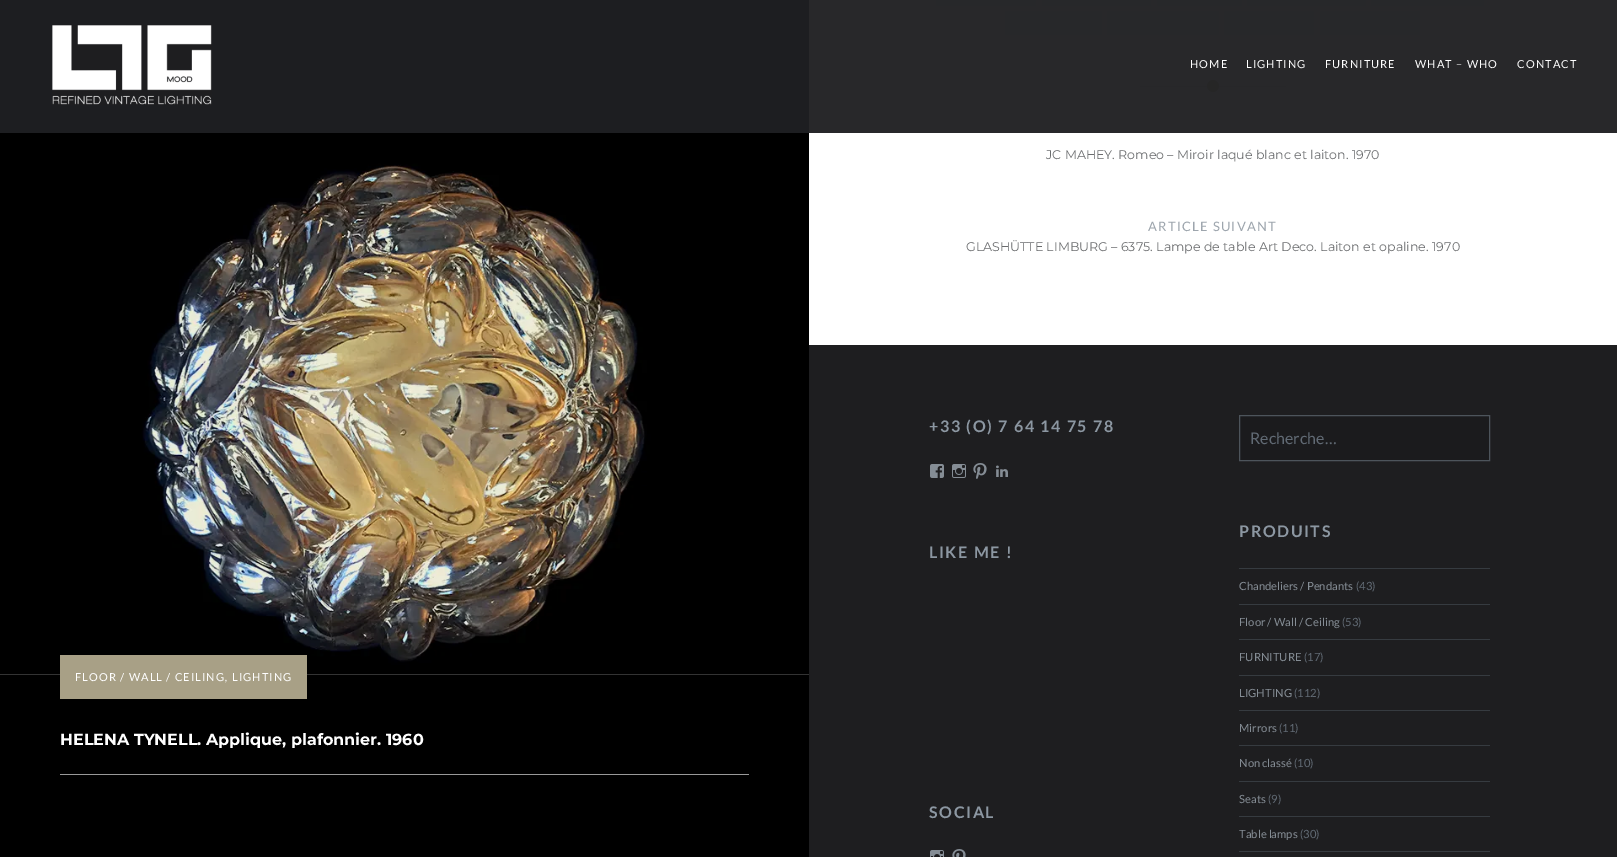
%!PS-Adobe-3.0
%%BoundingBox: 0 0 1617 857
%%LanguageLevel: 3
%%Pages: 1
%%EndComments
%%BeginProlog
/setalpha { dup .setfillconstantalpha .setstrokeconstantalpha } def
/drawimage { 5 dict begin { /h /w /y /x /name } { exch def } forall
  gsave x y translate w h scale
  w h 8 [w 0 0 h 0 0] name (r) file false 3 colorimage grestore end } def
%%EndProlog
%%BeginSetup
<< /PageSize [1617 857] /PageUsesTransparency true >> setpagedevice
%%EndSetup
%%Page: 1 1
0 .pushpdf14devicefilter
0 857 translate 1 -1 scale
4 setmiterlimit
1 setgray
0 0 1617 857 rectfill
0.878 setgray
1140 86 146 1 rectfill
0.839 0.784 0.616 setrgbcolor
newpath 1213 86 6 0 360 arc closepath fill
(images/2.raw) 0 0 809 857 drawimage
0.937 setgray
936 0 100 6 rectfill
1042 0 109 6 rectfill
1157 0 85 6 rectfill
1247 0 119 6 rectfill
1371 0 113 6 rectfill
1005 11 97 24 rectfill
1107 11 112 24 rectfill
1224 11 90 24 rectfill
1320 11 100 24 rectfill
0.8 setalpha
0.141 0.149 0.161 setrgbcolor
0 0 1617 133 rectfill
1 setalpha
(images/1.raw) 52 25 160 80 drawimage
0.8 setalpha
0.118 0.118 0.125 setrgbcolor
809 0 808 133 rectfill
1 setalpha
0.2 setgray
0 674 809 1 rectfill
0.659 0.627 0.525 setrgbcolor
60 655 247 44 rectfill
0.6 setgray
60 774 689 1 rectfill
0.118 0.118 0.125 setrgbcolor
809 345 808 512 rectfill
(images/3.raw) 930 464 14 14 drawimage
(images/4.raw) 952 464 14 14 drawimage
(images/5.raw) 973 463 14 16 drawimage
(images/6.raw) 996 465 12 12 drawimage
0.106 0.106 0.114 setrgbcolor
newpath 1239.5 415.5 moveto 1489.5 415.5 lineto 1489.5 460.5 lineto 1239.5 460.5 lineto closepath gsave fill grestore
0.302 0.329 0.357 setrgbcolor
stroke
0.212 0.231 0.251 setrgbcolor
1239 568 251 1 rectfill
1239 604 251 1 rectfill
1239 639 251 1 rectfill
1239 675 251 1 rectfill
1239 710 251 1 rectfill
1239 745 251 1 rectfill
1239 781 251 1 rectfill
1239 816 251 1 rectfill
1239 851 251 1 rectfill
(images/7.raw) 930 850 14 7 drawimage
(images/8.raw) 952 849 14 8 drawimage
/Lato-Regular [11 0 0 -11 0 0] selectfont
1 setgray
1190 68 moveto 1.1 0 (HOME) ashow
1246 68 moveto 1.1 0 (LIGHTING) ashow
1325 68 moveto 1.1 0 (FURNITURE) ashow
1415 68 moveto 1.1 0 (WHAT – WHO) ashow
1517 68 moveto 1.1 0 (CONTACT) ashow
/Montserrat-Regular [12.6 0 0 -12.6 0 0] selectfont
0.416 0.424 0.431 setrgbcolor
1046 159 moveto (JC MAHEY. Romeo – Miroir laqué blanc et laiton. 1970) show
/Lato-Regular [13 0 0 -13 0 0] selectfont
0.616 0.647 0.678 setrgbcolor
1148 231 moveto 1.25 0 (ARTICLE SUIVANT) ashow
/Montserrat-Regular [12.6 0 0 -12.6 0 0] selectfont
0.416 0.424 0.431 setrgbcolor
966 251 moveto (GLASHÜTTE LIMBURG – 6375. Lampe de table Art Deco. Laiton et opaline. 1970) show
/Lato-Regular [11 0 0 -11 0 0] selectfont
1 setgray
75 681 moveto 1.1 0 (FLOOR / WALL / CEILING) ashow
/Lato-Italic [11 0 0 -11 0 0] selectfont
225 681 moveto 1.1 0 (,) ashow
/Lato-Regular [11 0 0 -11 0 0] selectfont
232 681 moveto 1.1 0 (LIGHTING) ashow
/Montserrat-Bold [16 0 0 -16 0 0] selectfont
60 745 moveto (HELENA TYNELL. Applique, plafonnier. 1960) show
/Lato-Bold [16 0 0 -16 0 0] selectfont
0.549 0.592 0.635 setrgbcolor
929 432 moveto 1.6 0 (+33 \(O\) 7 64 14 75 78) ashow
/Lato-Regular [16 0 0 -16 0 0] selectfont
0.38 0.416 0.455 setrgbcolor
1250 444 moveto (Recherche…) show
/Lato-Bold [16 0 0 -16 0 0] selectfont
0.549 0.592 0.635 setrgbcolor
929 558 moveto 1.6 0 (LIKE ME !) ashow
1239 537 moveto 1.6 0 (PRODUITS) ashow
/Lato-Regular [11.25 0 0 -11.25 0 0] selectfont
0.522 0.553 0.584 setrgbcolor
1239 590 moveto (Chandeliers / Pendants) show
0.38 0.416 0.455 setrgbcolor
1356 590 moveto (\(43\)) show
0.522 0.553 0.584 setrgbcolor
1239 626 moveto (Floor / Wall / Ceiling) show
0.38 0.416 0.455 setrgbcolor
1342 626 moveto (\(53\)) show
0.522 0.553 0.584 setrgbcolor
1239 661 moveto (FURNITURE) show
0.38 0.416 0.455 setrgbcolor
1304 661 moveto (\(17\)) show
0.522 0.553 0.584 setrgbcolor
1239 697 moveto (LIGHTING) show
0.38 0.416 0.455 setrgbcolor
1294 697 moveto (\(112\)) show
0.522 0.553 0.584 setrgbcolor
1239 732 moveto (Mirrors) show
0.38 0.416 0.455 setrgbcolor
1279 732 moveto (\(11\)) show
0.522 0.553 0.584 setrgbcolor
1239 767 moveto (Non classé) show
0.38 0.416 0.455 setrgbcolor
1294 767 moveto (\(10\)) show
0.522 0.553 0.584 setrgbcolor
1239 803 moveto (Seats) show
0.38 0.416 0.455 setrgbcolor
1268 803 moveto (\(9\)) show
0.522 0.553 0.584 setrgbcolor
1239 838 moveto (Table lamps) show
0.38 0.416 0.455 setrgbcolor
1300 838 moveto (\(30\)) show
/Lato-Bold [16 0 0 -16 0 0] selectfont
0.549 0.592 0.635 setrgbcolor
929 818 moveto 1.6 0 (SOCIAL) ashow
.poppdf14devicefilter showpage
%%EOF
